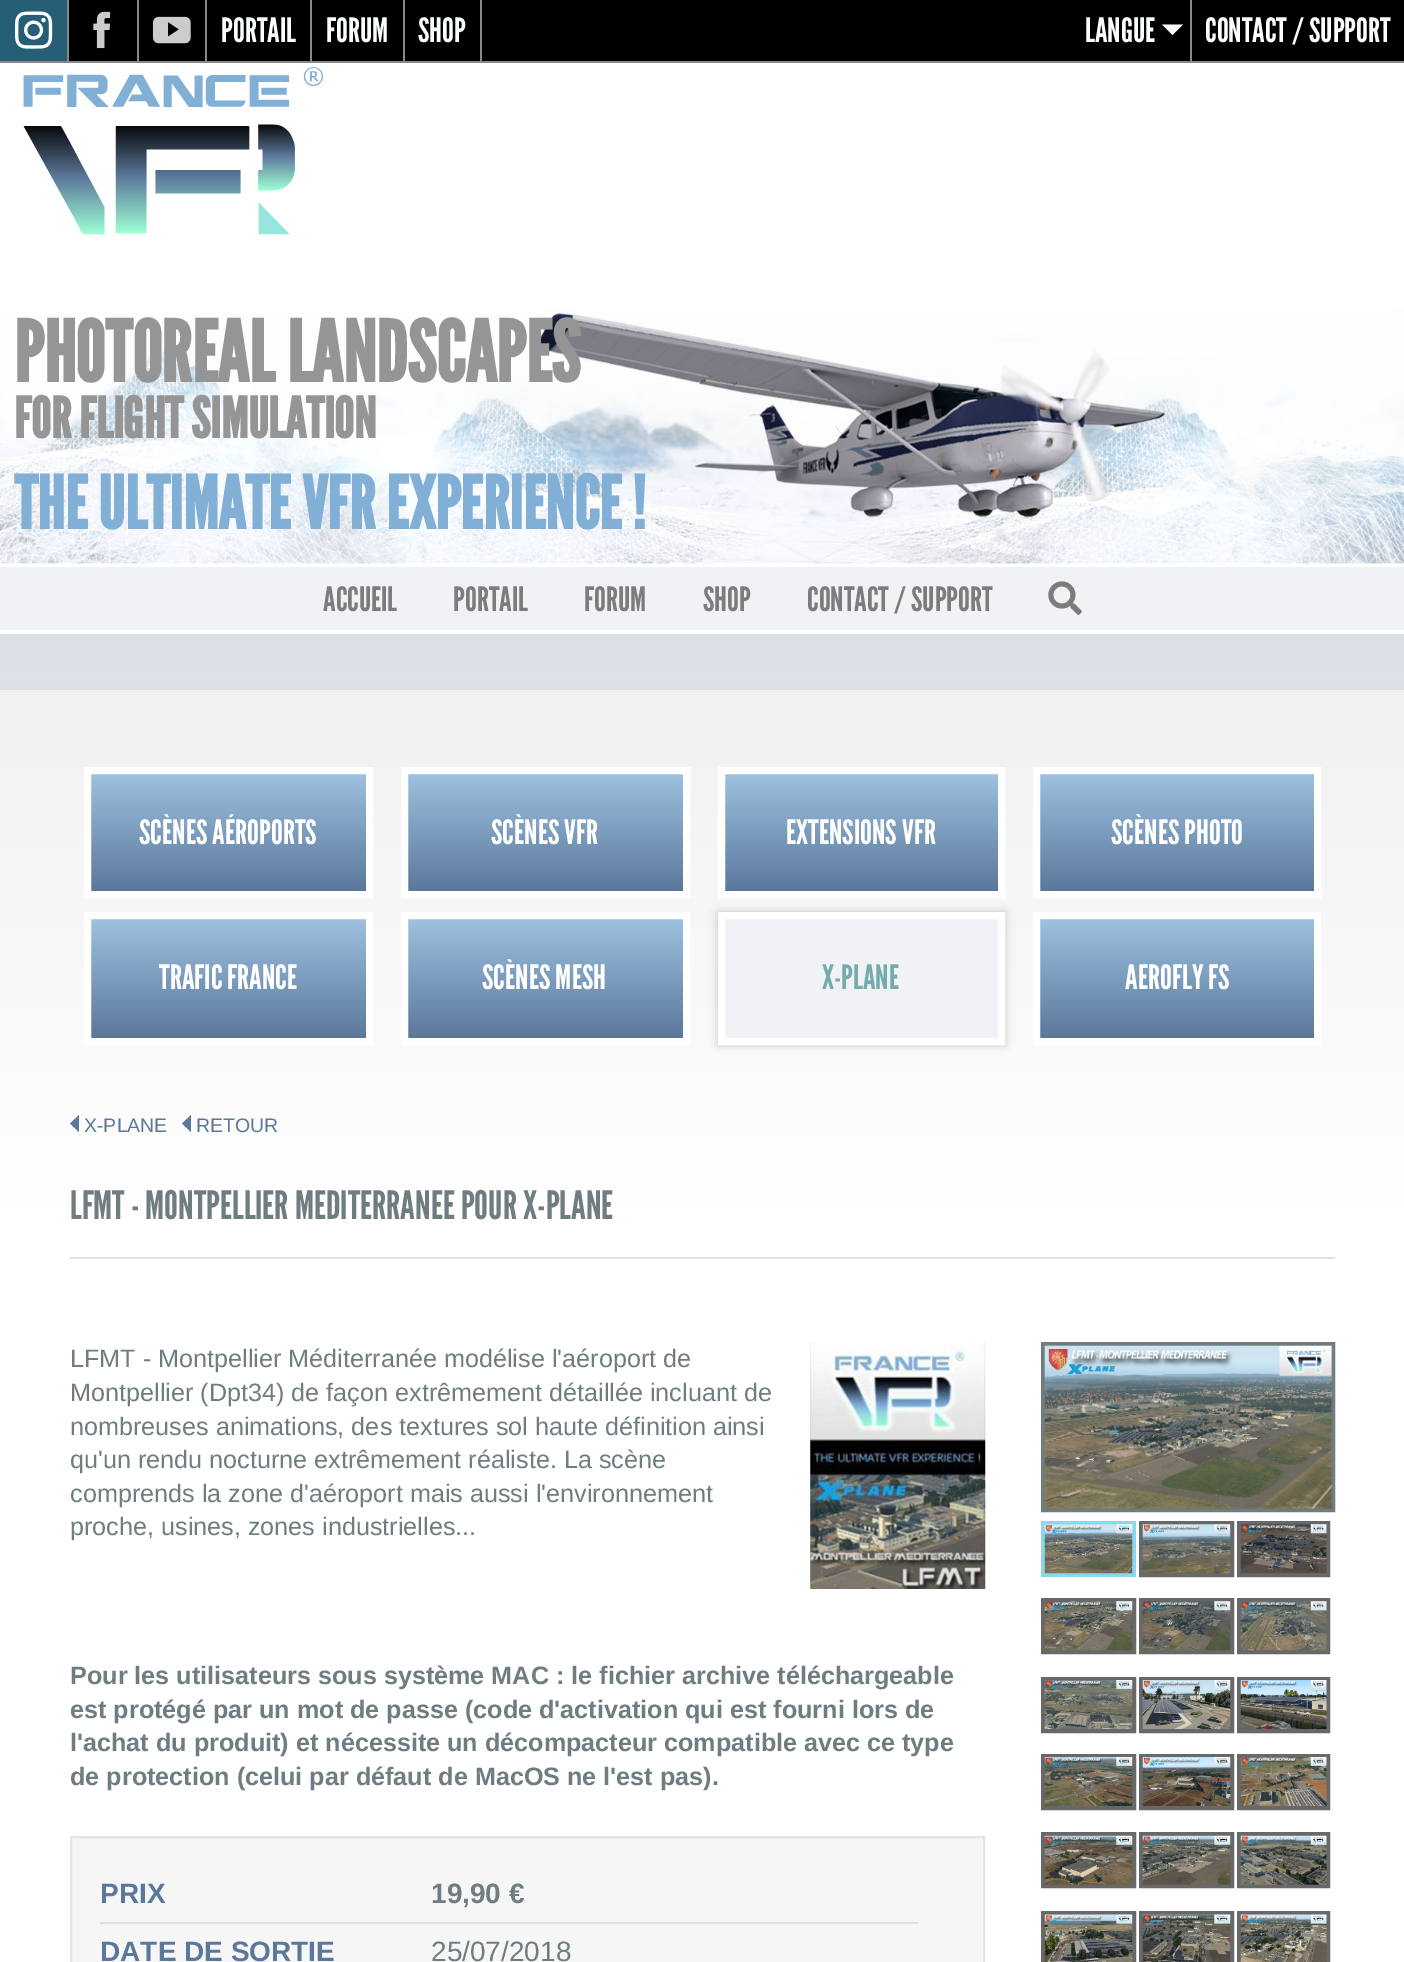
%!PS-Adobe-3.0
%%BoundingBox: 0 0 1404 1962
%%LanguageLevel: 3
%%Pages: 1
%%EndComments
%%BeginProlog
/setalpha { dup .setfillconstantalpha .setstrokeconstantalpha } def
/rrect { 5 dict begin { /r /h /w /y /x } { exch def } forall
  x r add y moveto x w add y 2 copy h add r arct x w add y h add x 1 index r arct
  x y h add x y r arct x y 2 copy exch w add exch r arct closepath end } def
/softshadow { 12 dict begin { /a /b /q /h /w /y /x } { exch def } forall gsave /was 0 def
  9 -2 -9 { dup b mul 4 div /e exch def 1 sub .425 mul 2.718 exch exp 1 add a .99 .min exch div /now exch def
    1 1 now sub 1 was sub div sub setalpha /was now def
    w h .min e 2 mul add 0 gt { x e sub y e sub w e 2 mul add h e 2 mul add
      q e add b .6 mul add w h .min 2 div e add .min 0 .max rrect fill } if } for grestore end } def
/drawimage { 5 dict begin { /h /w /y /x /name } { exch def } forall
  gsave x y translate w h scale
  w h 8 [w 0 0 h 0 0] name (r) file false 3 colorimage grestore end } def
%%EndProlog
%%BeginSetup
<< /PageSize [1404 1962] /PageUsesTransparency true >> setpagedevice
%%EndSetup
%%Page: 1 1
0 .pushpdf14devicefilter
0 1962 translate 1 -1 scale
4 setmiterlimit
1 setgray
0 0 1404 1962 rectfill
0 setgray
69 0 1335 61 rectfill
0.533 setgray
0 61 1404 2 rectfill
67 0 2 61 rectfill
0.149 0.369 0.463 setrgbcolor
0 0 67 61 rectfill
(images/1.raw) 15 11 38 38 drawimage
0.533 setgray
137 0 2 61 rectfill
(images/2.raw) 93 11 18 38 drawimage
205 0 2 61 rectfill
(images/3.raw) 152 16 39 28 drawimage
310 0 2 61 rectfill
403 0 2 61 rectfill
480 0 2 61 rectfill
0.976 1 0.976 setrgbcolor
newpath 1162 24.5 moveto 1183 24.5 lineto 1172.5 35 lineto closepath fill
0.533 setgray
1190 0 2 61 rectfill
(images/4.raw) 23 67 300 168 drawimage
(images/5.raw) 0 309 1404 255 drawimage
(images/7.raw) 0 634 1404 56 drawimage
0.855 0.855 0.898 setrgbcolor
9 585 1388 49 0 4.5 1 softshadow
0.941 0.949 0.965 setrgbcolor
0 567 1404 63 rectfill
1 setgray
0 630 1404 4 rectfill
(images/6.raw) 1048 581 34 34 drawimage
0.855 0.855 0.898 setrgbcolor
-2 688 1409 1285 0 3.5 1 softshadow
gsave newpath 0 690 moveto 1404 690 lineto 1404 1962 lineto 0 1962 lineto closepath clip newpath
<< /ShadingType 2 /ColorSpace /DeviceRGB /Coords [703 690 703 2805] /Extend [true true] /Function << /FunctionType 3 /Domain [0 1] /Functions [<< /FunctionType 2 /Domain [0 1] /C0 [0.949 0.941 0.945] /C1 [1 1 1] /N 1 >> << /FunctionType 2 /Domain [0 1] /C0 [1 1 1] /C1 [1 1 1] /N 1 >>] /Bounds [0.25] /Encode [0 1 0 1] >> >> shfill grestore
gsave newpath 91 774 moveto 366 774 lineto 366 891 lineto 91 891 lineto closepath clip newpath
<< /ShadingType 2 /ColorSpace /DeviceRGB /Coords [228 774 228 891] /Extend [true true] /Function << /FunctionType 2 /Domain [0 1] /C0 [0.616 0.757 0.875] /C1 [0.357 0.471 0.608] /N 1 >> >> shfill grestore
1 setgray
7 setlinewidth
87.5 770.5 282 124 rectstroke
gsave newpath 408 774 moveto 683 774 lineto 683 891 lineto 408 891 lineto closepath clip newpath
<< /ShadingType 2 /ColorSpace /DeviceRGB /Coords [545 774 545 891] /Extend [true true] /Function << /FunctionType 2 /Domain [0 1] /C0 [0.616 0.757 0.875] /C1 [0.357 0.471 0.608] /N 1 >> >> shfill grestore
404.5 770.5 282 124 rectstroke
gsave newpath 725 774 moveto 998 774 lineto 998 891 lineto 725 891 lineto closepath clip newpath
<< /ShadingType 2 /ColorSpace /DeviceRGB /Coords [861 774 861 891] /Extend [true true] /Function << /FunctionType 2 /Domain [0 1] /C0 [0.616 0.757 0.875] /C1 [0.357 0.471 0.608] /N 1 >> >> shfill grestore
721.5 770.5 280 124 rectstroke
gsave newpath 1040 774 moveto 1314 774 lineto 1314 891 lineto 1040 891 lineto closepath clip newpath
<< /ShadingType 2 /ColorSpace /DeviceRGB /Coords [1177 774 1177 891] /Extend [true true] /Function << /FunctionType 2 /Domain [0 1] /C0 [0.616 0.757 0.875] /C1 [0.357 0.471 0.608] /N 1 >> >> shfill grestore
1036.5 770.5 281 124 rectstroke
gsave newpath 91 919 moveto 366 919 lineto 366 1038 lineto 91 1038 lineto closepath clip newpath
<< /ShadingType 2 /ColorSpace /DeviceRGB /Coords [228 919 228 1038] /Extend [true true] /Function << /FunctionType 2 /Domain [0 1] /C0 [0.616 0.757 0.875] /C1 [0.357 0.471 0.608] /N 1 >> >> shfill grestore
87.5 915.5 282 126 rectstroke
gsave newpath 408 919 moveto 683 919 lineto 683 1038 lineto 408 1038 lineto closepath clip newpath
<< /ShadingType 2 /ColorSpace /DeviceRGB /Coords [545 919 545 1038] /Extend [true true] /Function << /FunctionType 2 /Domain [0 1] /C0 [0.616 0.757 0.875] /C1 [0.357 0.471 0.608] /N 1 >> >> shfill grestore
404.5 915.5 282 126 rectstroke
0 setgray
718 912 287 133 0 4.5 0.2 softshadow
0.941 0.949 0.965 setrgbcolor
newpath 721.5 915.5 moveto 1001.5 915.5 lineto 1001.5 1041.5 lineto 721.5 1041.5 lineto closepath gsave fill grestore
1 setgray
stroke
gsave newpath 1040 919 moveto 1314 919 lineto 1314 1038 lineto 1040 1038 lineto closepath clip newpath
<< /ShadingType 2 /ColorSpace /DeviceRGB /Coords [1177 919 1177 1038] /Extend [true true] /Function << /FunctionType 2 /Domain [0 1] /C0 [0.616 0.757 0.875] /C1 [0.357 0.471 0.608] /N 1 >> >> shfill grestore
1036.5 915.5 281 126 rectstroke
0.357 0.471 0.608 setrgbcolor
newpath 79 1115 moveto 79 1132 lineto 70 1123.5 lineto closepath fill
newpath 191 1115 moveto 191 1132 lineto 182 1123.5 lineto closepath fill
0.878 setgray
70 1257 1265 2 rectfill
(images/8.raw) 810 1342 176 247 drawimage
0.965 setgray
newpath 71 1837 moveto 984 1837 lineto 984 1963 lineto 71 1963 lineto closepath gsave fill grestore
0.894 setgray
2 setlinewidth
stroke
0.878 setgray
100 1922 819 2 rectfill
0.435 0.49 0.506 setrgbcolor
4 setlinewidth
1043 1344 290 166 rectstroke
(images/9.raw) 1044 1345 289 164 drawimage
0.549 0.839 0.937 setrgbcolor
1041 1521 95 56 rectfill
(images/10.raw) 1044 1524 89 50 drawimage
0.408 setgray
1141 1523 91 52 rectstroke
(images/11.raw) 1142 1524 89 50 drawimage
1239 1523 89 52 rectstroke
(images/12.raw) 1240 1524 87 50 drawimage
1043 1600 91 52 rectstroke
(images/13.raw) 1044 1601 89 50 drawimage
1141 1600 91 52 rectstroke
(images/14.raw) 1142 1601 89 50 drawimage
1239 1600 89 52 rectstroke
(images/15.raw) 1240 1601 87 50 drawimage
1043 1679 91 52 rectstroke
(images/16.raw) 1044 1680 89 49 drawimage
1141 1679 91 52 rectstroke
(images/17.raw) 1142 1680 89 49 drawimage
1239 1679 89 52 rectstroke
(images/18.raw) 1240 1680 87 49 drawimage
1043 1756 91 52 rectstroke
(images/19.raw) 1044 1757 89 49 drawimage
1141 1756 91 52 rectstroke
(images/20.raw) 1142 1757 89 49 drawimage
1239 1756 89 52 rectstroke
(images/21.raw) 1240 1757 87 49 drawimage
1043 1834 91 52 rectstroke
(images/22.raw) 1044 1835 89 50 drawimage
1141 1834 91 52 rectstroke
(images/23.raw) 1142 1835 89 50 drawimage
1239 1834 89 52 rectstroke
(images/24.raw) 1240 1835 87 50 drawimage
1043 1913 91 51 rectstroke
(images/25.raw) 1044 1914 89 48 drawimage
1141 1913 91 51 rectstroke
(images/26.raw) 1142 1914 89 48 drawimage
1239 1913 89 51 rectstroke
(images/27.raw) 1240 1914 87 48 drawimage
/LeagueGothic-Regular [33.5 0 0 -33.5 0 0] selectfont
0.976 1 0.976 setrgbcolor
221 42 moveto (PORTAIL) show
326 42 moveto (FORUM) show
418 42 moveto (SHOP) show
1085 42 moveto (LANGUE) show
1205 42 moveto (CONTACT / SUPPORT) show
/LeagueGothic-Bold [84 0 0 -84 0 0] selectfont
0.584 setgray
14 382 moveto (PHOTOREAL LANDSCAPES) show
/LeagueGothic-Bold [56 0 0 -56 0 0] selectfont
14 438 moveto (FOR FLIGHT SIMULATION) show
/LeagueGothic-Bold [72.75 0 0 -72.75 0 0] selectfont
0.506 0.686 0.839 setrgbcolor
14 529 moveto (THE ULTIMATE VFR EXPERIENCE !) show
/LeagueGothic-Regular [33.5 0 0 -33.5 0 0] selectfont
0.486 setgray
323 611 moveto (ACCUEIL) show
453 611 moveto (PORTAIL) show
584 611 moveto (FORUM) show
703 611 moveto (SHOP) show
807 611 moveto (CONTACT / SUPPORT) show
1 setgray
139 844 moveto (SCÈNES AÉROPORTS) show
491 844 moveto (SCÈNES VFR) show
786 844 moveto (EXTENSIONS VFR) show
1111 844 moveto (SCÈNES PHOTO) show
159 989 moveto (TRAFIC FRANCE) show
482 989 moveto (SCÈNES MESH) show
0.455 0.675 0.682 setrgbcolor
822 989 moveto (X-PLANE) show
1 setgray
1125 989 moveto (AEROFLY FS) show
/LiberationSans-Regular [19.5 0 0 -19.5 0 0] selectfont
0.357 0.471 0.608 setrgbcolor
84 1132 moveto (X-PLANE) show
196 1132 moveto (RETOUR) show
/LeagueGothic-Regular [39.25 0 0 -39.25 0 0] selectfont
0.435 0.49 0.506 setrgbcolor
70 1219 moveto (LFMT - MONTPELLIER MEDITERRANEE POUR X-PLANE) show
/LiberationSans-Regular [25.2 0 0 -25.2 0 0] selectfont
70 1367 moveto (LFMT - Montpellier Méditerranée modélise l'aéroport de) show
70 1401 moveto (Montpellier \(Dpt34\) de façon extrêmement détaillée incluant de) show
70 1435 moveto (nombreuses animations, des textures sol haute définition ainsi) show
70 1468 moveto (qu'un rendu nocturne extrêmement réaliste. La scène) show
70 1502 moveto (comprends la zone d'aéroport mais aussi l'environnement) show
70 1535 moveto (proche, usines, zones industrielles...) show
/LiberationSans-Bold [25.2 0 0 -25.2 0 0] selectfont
70 1684 moveto (Pour les utilisateurs sous système MAC : le fichier archive téléchargeable) show
70 1718 moveto (est protégé par un mot de passe \(code d'activation qui est fourni lors de) show
70 1751 moveto (l'achat du produit\) et nécessite un décompacteur compatible avec ce type) show
70 1785 moveto (de protection \(celui par défaut de MacOS ne l'est pas\).) show
/LiberationSans-Bold [28 0 0 -28 0 0] selectfont
0.357 0.471 0.608 setrgbcolor
100 1903 moveto (PRIX) show
0.435 0.49 0.506 setrgbcolor
431 1903 moveto (19,90 €) show
0.357 0.471 0.608 setrgbcolor
100 1961 moveto (DATE DE SORTIE) show
/LiberationSans-Regular [28 0 0 -28 0 0] selectfont
0.435 0.49 0.506 setrgbcolor
431 1961 moveto (25/07/2018) show
.poppdf14devicefilter showpage
%%EOF
